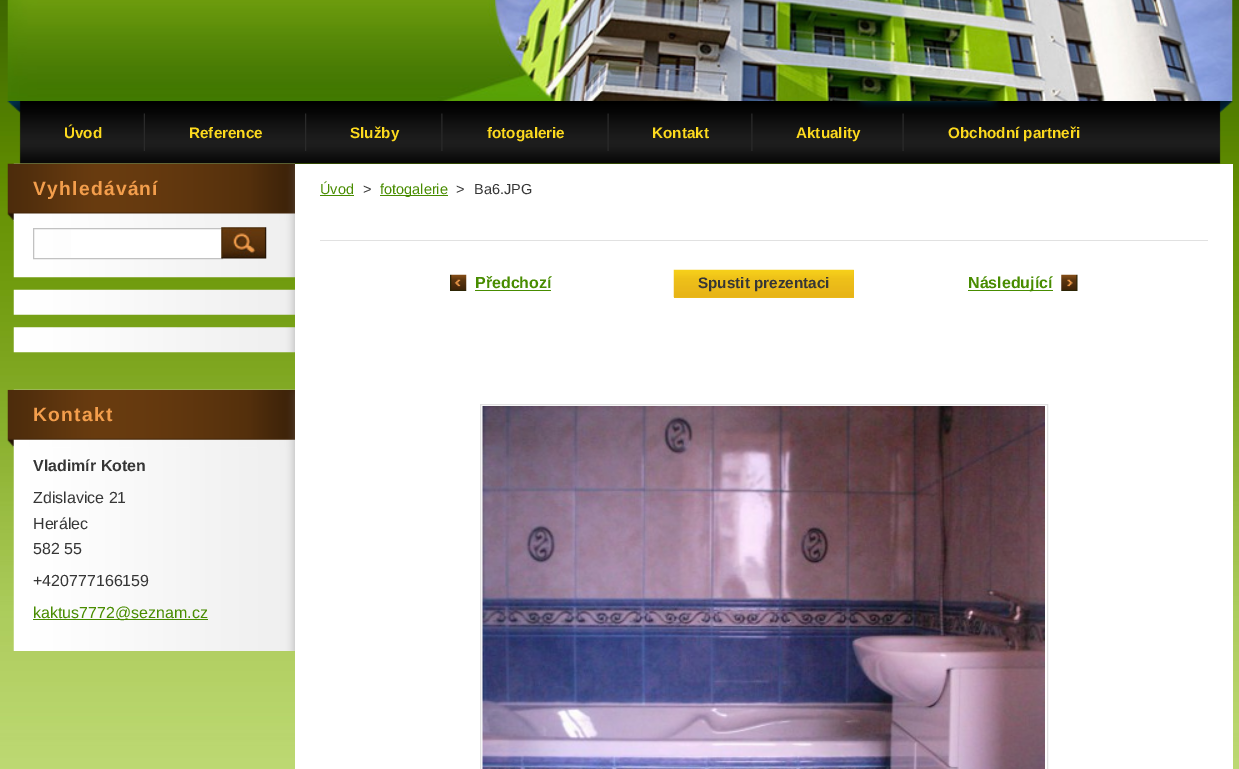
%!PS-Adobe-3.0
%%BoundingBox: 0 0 1239 769
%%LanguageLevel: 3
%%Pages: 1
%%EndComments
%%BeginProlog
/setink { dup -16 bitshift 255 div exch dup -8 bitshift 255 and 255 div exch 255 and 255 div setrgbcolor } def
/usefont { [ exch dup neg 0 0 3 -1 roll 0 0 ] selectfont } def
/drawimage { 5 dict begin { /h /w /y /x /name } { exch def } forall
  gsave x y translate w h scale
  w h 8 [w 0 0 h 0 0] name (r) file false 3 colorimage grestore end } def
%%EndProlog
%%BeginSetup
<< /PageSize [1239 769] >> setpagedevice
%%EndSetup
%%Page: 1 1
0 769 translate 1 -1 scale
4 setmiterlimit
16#FFFFFF setink
0 0 1239 769 rectfill
(img1.raw) 0 0 1239 769 drawimage
(img2.raw) 7 0 1226 101 drawimage
(img3.raw) 7 101 1226 63 drawimage
(img4.raw) 143 113 2 38 drawimage
/LiberationSans-Bold 15.25 usefont
16#FDDA1E setink
64 138 moveto (Úvod) show
(img5.raw) 305 113 2 38 drawimage
189 138 moveto (Reference) show
(img6.raw) 441 113 2 38 drawimage
350 138 moveto (Služby) show
(img7.raw) 607 113 2 38 drawimage
487 138 moveto (fotogalerie) show
(img6.raw) 751 113 2 38 drawimage
652 138 moveto (Kontakt) show
(img7.raw) 902 113 2 38 drawimage
796 138 moveto (Aktuality) show
948 138 moveto (Obchodní partneři) show
(img8.raw) 13 163 282 115 drawimage
(img9.raw) 7 163 288 58 drawimage
/LiberationSans-Bold 19.25 usefont
16#F39E4C setink
33 195 moveto 1.25 0 (Vyhledávání) ashow
16#FFFFFF setink
71 229 151 29 rectfill
16#C1C1C1 setink
33.5 228.5 189 30 rectstroke
(img10.raw) 221 227 46 32 drawimage
(img11.raw) 13 289 282 26 drawimage
(img12.raw) 13 327 282 26 drawimage
(img13.raw) 13 389 282 262 drawimage
(img14.raw) 7 389 288 59 drawimage
16#F39E4C setink
33 421 moveto 1.25 0 (Kontakt) ashow
/LiberationSans-Bold 16 usefont
16#363636 setink
33 471 moveto (Vladimír Koten) show
/LiberationSans-Regular 16 usefont
[
    [(Zdislavice 21) 33 503]
    [(Herálec) 33 529]
    [(582 55) 33 554]
    [(+420777166159) 33 586]
] { aload pop moveto show } forall
16#488C00 setink
33 619 175 1 rectfill
33 618 moveto (kaktus7772@seznam.cz) show
16#FFFFFF setink
295 164 938 605 rectfill
/LiberationSans-Regular 14.5 usefont
16#488C00 setink
320 194 moveto (Úvod) show
320 195 34 1 rectfill
16#363636 setink
363 194 moveto (>) show
16#488C00 setink
380 195 68 1 rectfill
380 194 moveto (fotogalerie) show
16#363636 setink
456 194 moveto (>) show
474 194 moveto (Ba6.JPG) show
16#E1E1E1 setink
320 240 888 1 rectfill
(img15.raw) 450 274 17 17 drawimage
/LiberationSans-Bold 16 usefont
16#488C00 setink
475 288 moveto (Předchozí) show
475 290 76 1 rectfill
16#EABA18 setink
674 270 180 28 rectfill
(img16.raw) 673 269 181 29 drawimage
/LiberationSans-Bold 15.25 usefont
16#363636 setink
698 288 moveto (Spustit prezentaci) show
(img17.raw) 1061 274 17 17 drawimage
16#488C00 setink
968 290 85 1 rectfill
/LiberationSans-Bold 16 usefont
968 288 moveto (Následující) show
16#E1E1E1 setink
480.5 404.5 567 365 rectstroke
(img18.raw) 482 406 563 363 drawimage
showpage
%%EOF
